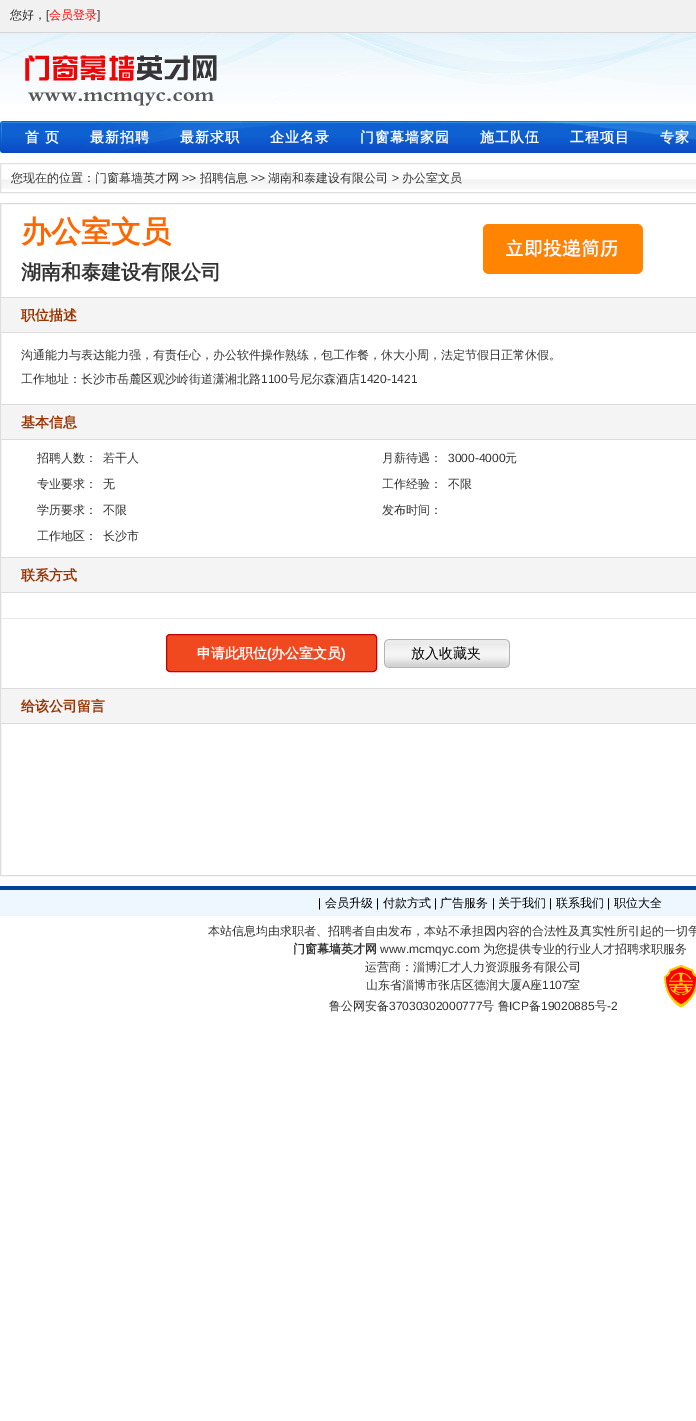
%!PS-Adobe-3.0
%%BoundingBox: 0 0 696 1421
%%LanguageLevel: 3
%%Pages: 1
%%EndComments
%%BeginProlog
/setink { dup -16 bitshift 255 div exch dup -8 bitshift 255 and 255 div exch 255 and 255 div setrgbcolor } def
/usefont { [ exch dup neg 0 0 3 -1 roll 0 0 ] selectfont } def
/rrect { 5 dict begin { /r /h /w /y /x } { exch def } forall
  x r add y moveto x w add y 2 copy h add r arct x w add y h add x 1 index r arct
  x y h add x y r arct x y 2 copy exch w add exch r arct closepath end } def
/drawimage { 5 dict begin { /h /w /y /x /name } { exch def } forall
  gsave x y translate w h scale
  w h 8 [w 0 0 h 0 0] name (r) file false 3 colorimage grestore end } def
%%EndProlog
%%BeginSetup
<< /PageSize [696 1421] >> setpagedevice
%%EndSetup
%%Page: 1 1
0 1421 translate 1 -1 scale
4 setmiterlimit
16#FFFFFF setink
0 0 696 1421 rectfill
(img1.raw) 0 33 696 71 drawimage
16#F1F1F1 setink
0 0 696 32 rectfill
16#D5D5D5 setink
0 32 696 1 rectfill
/WenQuanYiZenHei-Medium 12 usefont
16#333333 setink
10 19 moveto (您好，) show
/LiberationSans-Regular 12 usefont
46 19 moveto ([) show
/WenQuanYiZenHei-Medium 12 usefont
16#FF0000 setink
49 19 moveto (会员登录) show
/LiberationSans-Regular 12 usefont
16#333333 setink
97 19 moveto (]) show
(img2.raw) 25 55 192 51 drawimage
(img3.raw) 0 121 696 32 drawimage
/WenQuanYiZenHei-Bold 14 usefont
16#FFFFFF setink
25 142 moveto 1 0 (首 页) ashow
90 142 moveto 1 0 (最新招聘) ashow
180 142 moveto 1 0 (最新求职) ashow
270 142 moveto 1 0 (企业名录) ashow
360 142 moveto 1 0 (门窗幕墙家园) ashow
480 142 moveto 1 0 (施工队伍) ashow
570 142 moveto 1 0 (工程项目) ashow
660 142 moveto 1 0 (专家) ashow
(img4.raw) 1 179 695 10 drawimage
16#E1E1E1 setink
0.5 163.5 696 29 rectstroke
/WenQuanYiZenHei-Medium 12 usefont
16#333333 setink
11 182 moveto (您现在的位置：门窗幕墙英才网) show
/LiberationSans-Regular 12 usefont
182 182 moveto (>>) show
/WenQuanYiZenHei-Medium 12 usefont
200 182 moveto (招聘信息) show
/LiberationSans-Regular 12 usefont
251 182 moveto (>>) show
/WenQuanYiZenHei-Medium 12 usefont
268 182 moveto (湖南和泰建设有限公司) show
/LiberationSans-Regular 12 usefont
392 182 moveto (>) show
/WenQuanYiZenHei-Medium 12 usefont
402 182 moveto (办公室文员) show
16#DDDDDD setink
0.5 203.5 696 672 rectstroke
/WenQuanYiZenHei-Bold 30 usefont
16#FF6600 setink
21 242 moveto (办公室文员) show
(img5.raw) 483 224 160 50 drawimage
/WenQuanYiZenHei-Bold 20 usefont
16#333333 setink
21 279 moveto (湖南和泰建设有限公司) show
[
    [1 298 695 34 16#F4F4F4]
    [1 297 695 1 16#DDDDDD]
    [1 332 695 1 16#DDDDDD]
] { aload pop setink rectfill } forall
/WenQuanYiZenHei-Bold 14 usefont
16#993300 setink
21 320 moveto (职位描述) show
/WenQuanYiZenHei-Medium 12 usefont
16#333333 setink
21 359 moveto (沟通能力与表达能力强，有责任心，办公软件操作熟练，包工作餐，休大小周，法定节假日正常休假。) show
21 383 moveto (工作地址：长沙市岳麓区观沙岭街道潇湘北路) show
/LiberationSans-Regular 12 usefont
261 383 moveto (1100) show
/WenQuanYiZenHei-Medium 12 usefont
288 383 moveto (号尼尔森酒店) show
/LiberationSans-Regular 12 usefont
360 383 moveto (1420-1421) show
[
    [1 405 695 34 16#F4F4F4]
    [1 404 695 1 16#DDDDDD]
    [1 439 695 1 16#DDDDDD]
] { aload pop setink rectfill } forall
/WenQuanYiZenHei-Bold 14 usefont
16#993300 setink
21 427 moveto (基本信息) show
/WenQuanYiZenHei-Medium 12 usefont
16#333333 setink
[
    [(招聘人数：) 37 462]
    [(若干人) 103 462]
    [(月薪待遇：) 382 462]
] { aload pop moveto show } forall
/LiberationSans-Regular 12 usefont
448 462 moveto (3000-4000) show
/WenQuanYiZenHei-Medium 12 usefont
[
    [(元) 505 462]
    [(专业要求：) 37 488]
    [(无) 103 488]
    [(工作经验：) 382 488]
    [(不限) 448 488]
    [(学历要求：) 37 514]
    [(不限) 103 514]
    [(发布时间：) 382 514]
    [(工作地区：) 37 540]
    [(长沙市) 103 540]
] { aload pop moveto show } forall
[
    [1 558 695 34 16#F4F4F4]
    [1 557 695 1 16#DDDDDD]
    [1 592 695 1 16#DDDDDD]
] { aload pop setink rectfill } forall
/WenQuanYiZenHei-Bold 14 usefont
16#993300 setink
21 580 moveto (联系方式) show
16#EAEAEA setink
1 618 695 1 rectfill
16#F1491F setink
166.5 634.5 210 37 3.5 rrect gsave fill grestore
16#C40000 setink
stroke
16#FFFFFF setink
197 658 moveto (申请此职位) show
/LiberationSans-Bold 14 usefont
267 658 moveto (\() show
/WenQuanYiZenHei-Bold 14 usefont
271 658 moveto (办公室文员) show
/LiberationSans-Bold 14 usefont
341 658 moveto (\)) show
(img6.raw) 384 639 126 29 drawimage
/WenQuanYiZenHei-Medium 14 usefont
16#000000 setink
411 658 moveto (放入收藏夹) show
[
    [1 689 695 34 16#F4F4F4]
    [1 688 695 1 16#DDDDDD]
    [1 723 695 1 16#DDDDDD]
] { aload pop setink rectfill } forall
/WenQuanYiZenHei-Bold 14 usefont
16#993300 setink
21 711 moveto (给该公司留言) show
16#004499 setink
0 886 696 4 rectfill
16#EEF7FF setink
0 890 696 26 rectfill
/LiberationSans-Regular 12 usefont
16#000000 setink
318 907 moveto (|) show
/WenQuanYiZenHei-Medium 12 usefont
325 907 moveto (会员升级) show
/LiberationSans-Regular 12 usefont
376 907 moveto (|) show
/WenQuanYiZenHei-Medium 12 usefont
383 907 moveto (付款方式) show
/LiberationSans-Regular 12 usefont
434 907 moveto (|) show
/WenQuanYiZenHei-Medium 12 usefont
440 907 moveto (广告服务) show
/LiberationSans-Regular 12 usefont
492 907 moveto (|) show
/WenQuanYiZenHei-Medium 12 usefont
498 907 moveto (关于我们) show
/LiberationSans-Regular 12 usefont
549 907 moveto (|) show
/WenQuanYiZenHei-Medium 12 usefont
556 907 moveto (联系我们) show
/LiberationSans-Regular 12 usefont
607 907 moveto (|) show
/WenQuanYiZenHei-Medium 12 usefont
614 907 moveto (职位大全) show
16#333333 setink
208 935 moveto (本站信息均由求职者、招聘者自由发布，本站不承担因内容的合法性及真实性所引起的一切争) show
/WenQuanYiZenHei-Bold 12 usefont
293 953 moveto (门窗幕墙英才网) show
/LiberationSans-Regular 12 usefont
380 953 moveto (www.mcmqyc.com) show
/WenQuanYiZenHei-Medium 12 usefont
[
    [(为您提供专业的行业人才招聘求职服务) 483 953]
    [(运营商：淄博汇才人力资源服务有限公司) 365 971]
    [(山东省淄博市张店区德润大厦) 366 989]
] { aload pop moveto show } forall
/LiberationSans-Regular 12 usefont
522 989 moveto (A) show
/WenQuanYiZenHei-Medium 12 usefont
530 989 moveto (座) show
/LiberationSans-Regular 12 usefont
542 989 moveto (1107) show
/WenQuanYiZenHei-Medium 12 usefont
568 989 moveto (室) show
(img7.raw) 664 965 32 43 drawimage
329 1010 moveto (鲁公网安备) show
/LiberationSans-Regular 12 usefont
389 1010 moveto (37030302000777) show
/WenQuanYiZenHei-Medium 12 usefont
482 1010 moveto (号 鲁) show
/LiberationSans-Regular 12 usefont
509 1010 moveto (ICP) show
/WenQuanYiZenHei-Medium 12 usefont
529 1010 moveto (备) show
/LiberationSans-Regular 12 usefont
541 1010 moveto (19020885) show
/WenQuanYiZenHei-Medium 12 usefont
595 1010 moveto (号) show
/LiberationSans-Regular 12 usefont
607 1010 moveto (-2) show
showpage
%%EOF
